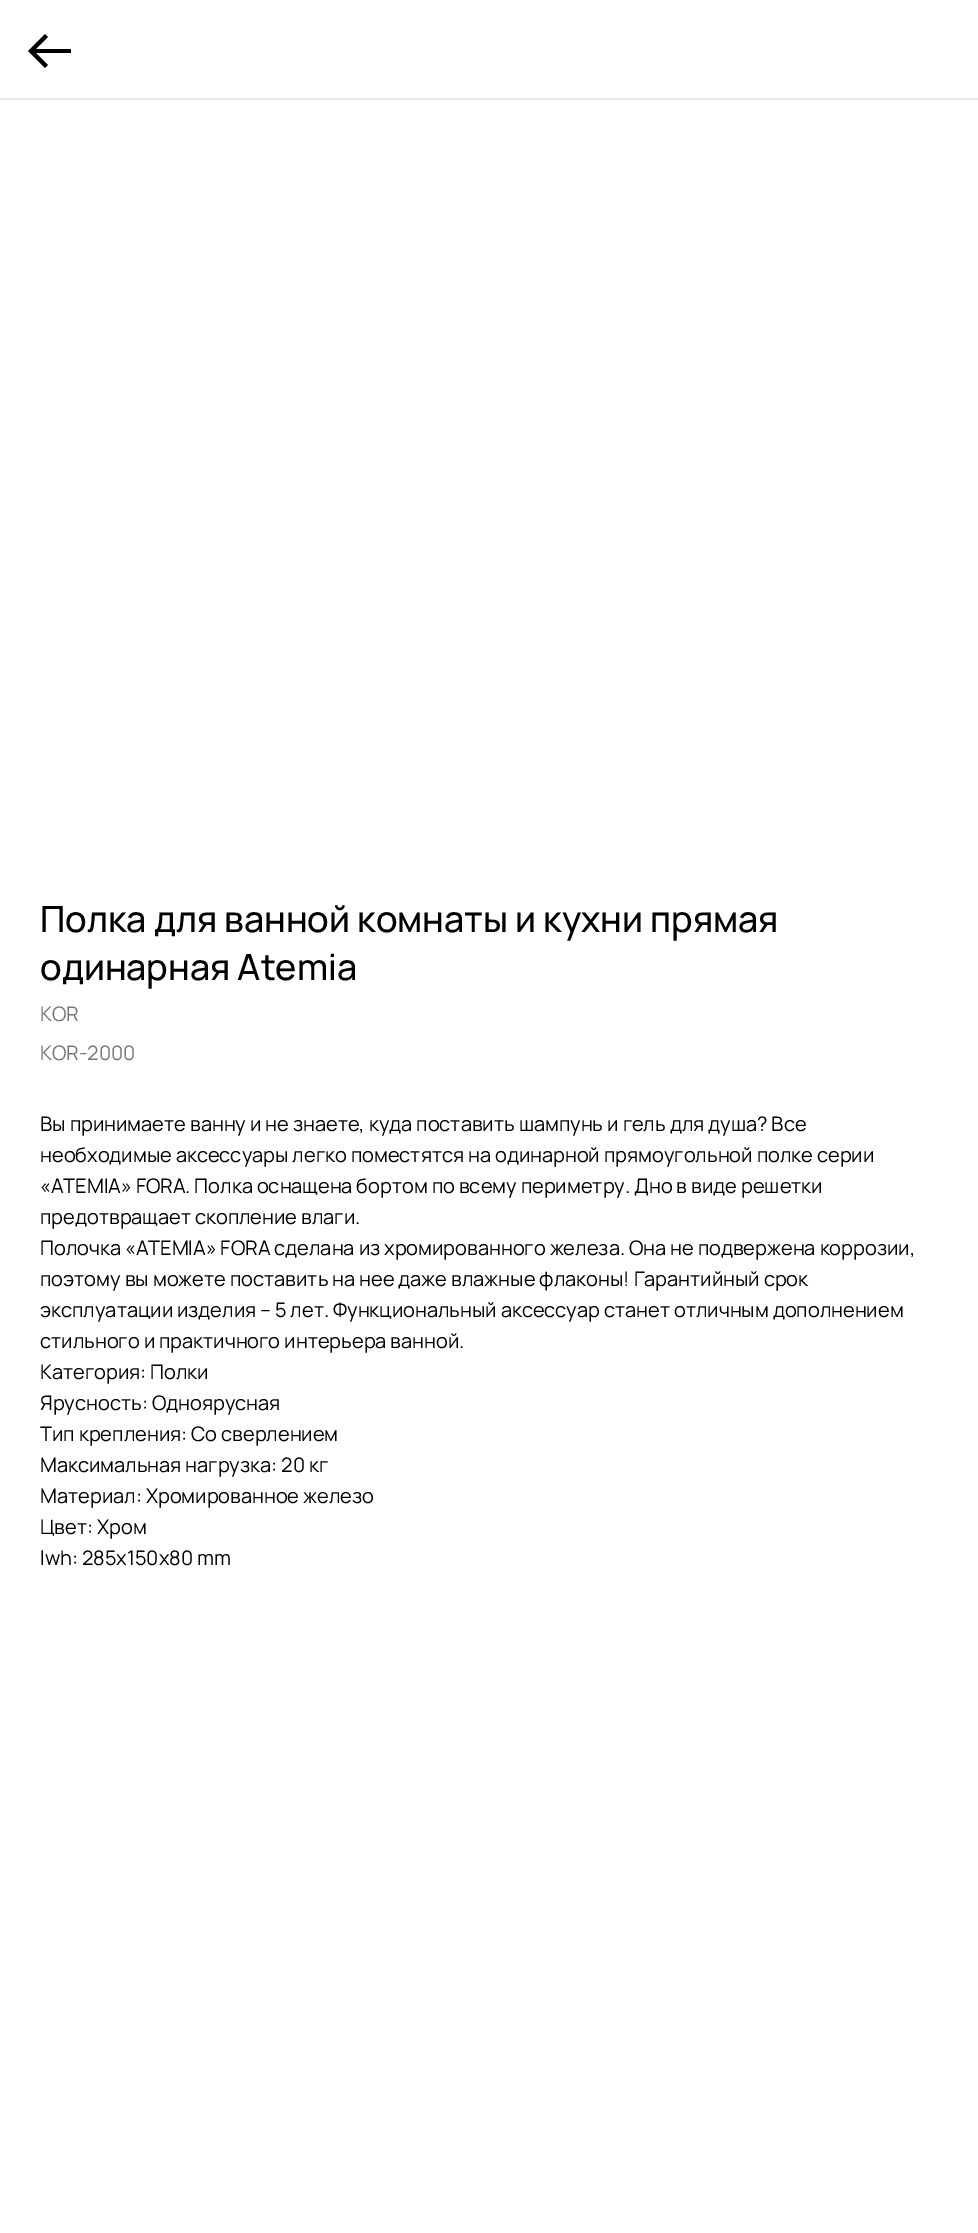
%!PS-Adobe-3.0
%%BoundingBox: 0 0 978 2233
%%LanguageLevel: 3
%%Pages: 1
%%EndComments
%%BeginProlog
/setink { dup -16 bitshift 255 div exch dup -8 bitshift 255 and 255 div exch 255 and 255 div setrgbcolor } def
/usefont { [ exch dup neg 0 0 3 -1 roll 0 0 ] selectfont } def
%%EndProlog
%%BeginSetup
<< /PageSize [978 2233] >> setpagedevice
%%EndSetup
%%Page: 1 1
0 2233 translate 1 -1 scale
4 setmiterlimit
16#FFFFFF setink
0 0 978 2233 rectfill
16#E6E6E6 setink
0 98 978 2 rectfill
16#000000 setink
45 34 moveto 48 37 lineto 36 49 lineto 71 49 lineto 71 53 lineto 36 53 lineto 48 65 lineto 45 68 lineto 28 51 lineto closepath fill
/Manrope-Medium 36 usefont
40 932 moveto (Полка для ванной комнаты и кухни прямая) show
40 980 moveto (одинарная Atemia) show
/Manrope-Regular 20 usefont
16#777777 setink
40 1021 moveto (KOR) show
40 1060 moveto (KOR-2000) show
16#000000 setink
[
    [(Вы принимаете ванну и не знаете, куда поставить шампунь и гель для душа? Все) 40 1131]
    [(необходимые аксессуары легко поместятся на одинарной прямоугольной полке серии) 40 1162]
    [(«ATEMIA» FORA. Полка оснащена бортом по всему периметру. Дно в виде решетки) 40 1193]
    [(предотвращает скопление влаги.) 40 1224]
    [(Полочка «ATEMIA» FORA сделана из хромированного железа. Она не подвержена коррозии,) 40 1255]
    [(поэтому вы можете поставить на нее даже влажные флаконы! Гарантийный срок) 40 1286]
    [(эксплуатации изделия – 5 лет. Функциональный аксессуар станет отличным дополнением) 40 1317]
    [(стильного и практичного интерьера ванной.) 40 1348]
    [(Категория: Полки) 40 1379]
    [(Ярусность: Одноярусная) 40 1410]
    [(Тип крепления: Со сверлением) 40 1441]
    [(Максимальная нагрузка: 20 кг) 40 1472]
    [(Материал: Хромированное железо) 40 1503]
    [(Цвет: Хром) 40 1534]
    [(lwh: 285x150x80 mm) 40 1565]
] { aload pop moveto show } forall
showpage
%%EOF
